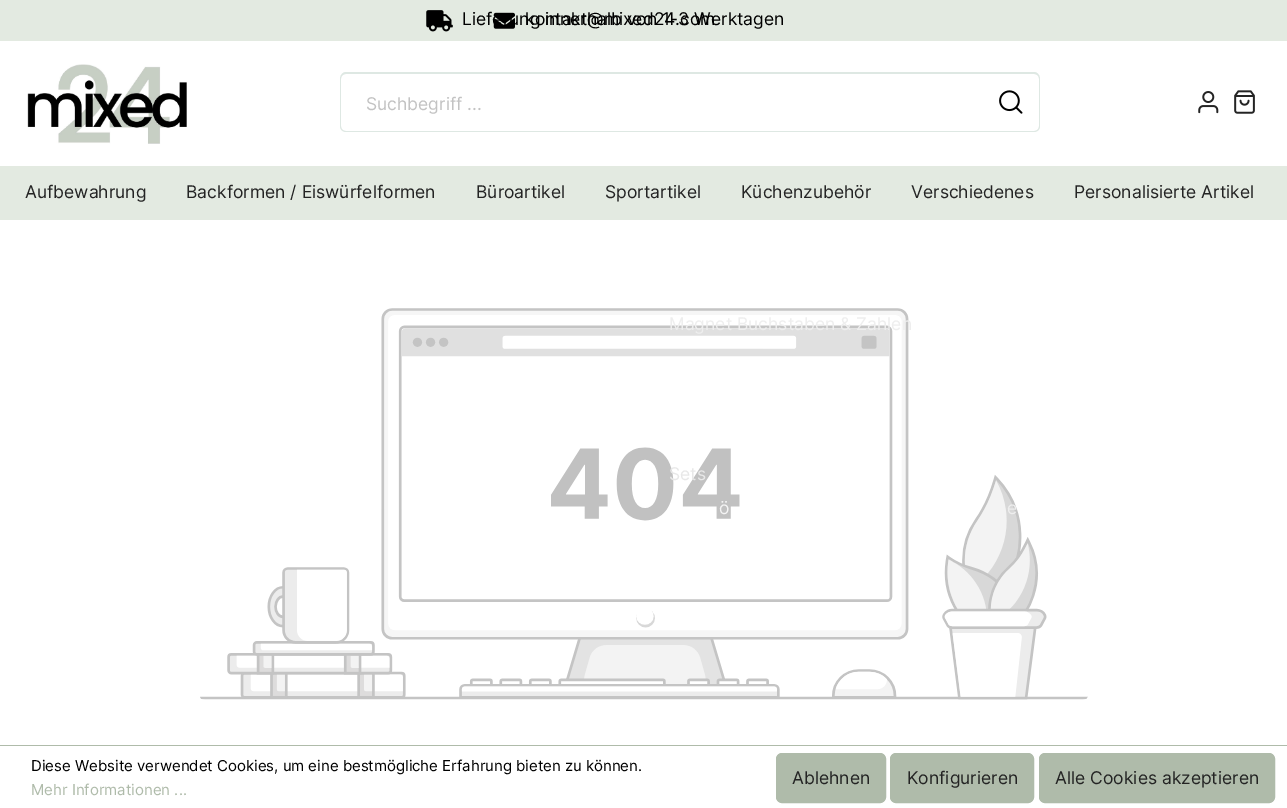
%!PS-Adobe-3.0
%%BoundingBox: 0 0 1287 808
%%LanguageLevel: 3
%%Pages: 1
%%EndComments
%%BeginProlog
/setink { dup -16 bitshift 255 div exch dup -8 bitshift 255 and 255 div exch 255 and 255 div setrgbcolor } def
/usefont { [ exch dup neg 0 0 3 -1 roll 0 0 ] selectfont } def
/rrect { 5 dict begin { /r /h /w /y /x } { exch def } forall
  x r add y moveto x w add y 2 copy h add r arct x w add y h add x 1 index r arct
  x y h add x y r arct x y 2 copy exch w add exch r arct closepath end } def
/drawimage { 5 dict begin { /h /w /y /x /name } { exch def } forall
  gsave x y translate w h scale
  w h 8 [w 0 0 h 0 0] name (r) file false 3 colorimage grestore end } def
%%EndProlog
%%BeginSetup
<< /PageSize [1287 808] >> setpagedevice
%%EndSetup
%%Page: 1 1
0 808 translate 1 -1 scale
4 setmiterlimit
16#FFFFFF setink
0 0 1287 808 rectfill
16#E3EAE1 setink
0 0 1287 41 rectfill
(img1.raw) 426 10 27 22 drawimage
(img2.raw) 493 12 22 17 drawimage
/Inter-Regular 17.5 usefont
16#000000 setink
525 25 moveto (kontakt@mixed24.com) show
462 25 moveto (Lieferung innerhalb von 1-3 Werktagen) show
(img3.raw) 27 64 160 80 drawimage
16#DEE8E3 setink
346 72 moveto 985 72 lineto 985 132 lineto 346 132 lineto 343 132 340 130 340 126 curveto 340 79 lineto 340 75 343 72 346 72 curveto closepath 346 74 moveto 985 74 lineto 985 131 lineto 346 131 lineto 343 131 341 129 341 126 curveto 341 79 lineto 341 76 343 74 346 74 curveto closepath eofill
16#C3C3C3 setink
366 110 moveto (Suchbegriff ...) show
16#FFFFFF setink
984 73 moveto 1034 73 lineto 1037.5 73 1040 75.5 1040 79 curveto 1040 127 lineto 1040 130.5 1037.5 133 1034 133 curveto 984 133 lineto closepath fill
16#DEE8E3 setink
984 72 moveto 1034 72 lineto 1037 72 1040 75 1040 79 curveto 1040 126 lineto 1040 130 1037 132 1034 132 curveto 984 132 lineto closepath 984 74 moveto 1034 74 lineto 1037 74 1039 76 1039 79 curveto 1039 126 lineto 1039 129 1037 131 1034 131 curveto 984 131 lineto closepath eofill
(img4.raw) 999 90 24 24 drawimage
(img5.raw) 1198 91 21 23 drawimage
(img6.raw) 1234 90 21 24 drawimage
16#E3EAE1 setink
0 166 1287 54 rectfill
16#242424 setink
[
    [(Aufbewahrung) 25 198]
    [(Backformen / Eiswürfelformen) 186 198]
    [(Büroartikel) 476 198]
    [(Sportartikel) 605 198]
    [(Küchenzubehör) 741 198]
    [(Verschiedenes) 911 198]
    [(Personalisierte Artikel) 1074 198]
] { aload pop moveto show } forall
(img7.raw) 200 308 888 392 drawimage
16#EEEEEE setink
669 330 moveto (Magnet Buchstaben & Zahlen) show
16#E8E8E8 setink
669 480 moveto (Sets) show
16#F4F4F4 setink
719 514 moveto (ö) show
16#EEEEEE setink
1007 514 moveto (e) show
16#AFBBAA setink
0 745 1287 1 rectfill
/Inter-Regular 15 usefont
16#000000 setink
31 771 moveto (Diese Website verwendet Cookies, um eine bestmögliche Erfahrung bieten zu können.) show
16#AFBBAA setink
31 795 moveto (Mehr Informationen ...) show
776.5 753.5 109 49 5.5 rrect gsave fill grestore
stroke
/Inter-Regular 17.5 usefont
16#242424 setink
792 784 moveto (Ablehnen) show
16#AFBBAA setink
890.5 753.5 143 49 5.5 rrect gsave fill grestore
stroke
16#242424 setink
907 784 moveto (Konfigurieren) show
16#AFBBAA setink
1039.5 753.5 235 49 5.5 rrect gsave fill grestore
stroke
16#242424 setink
1055 784 moveto (Alle Cookies akzeptieren) show
showpage
%%EOF
